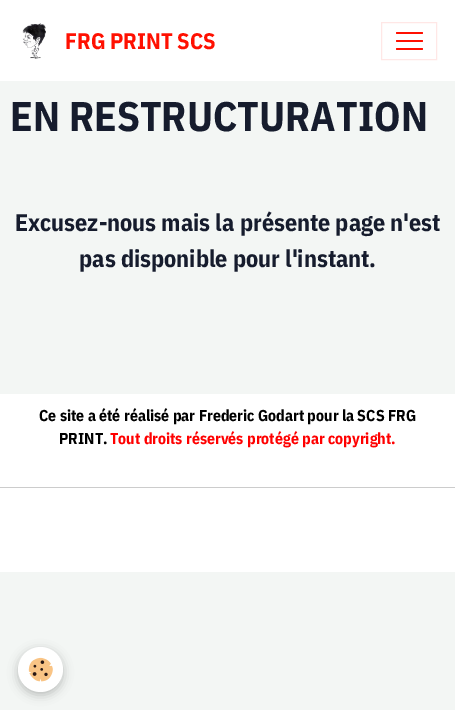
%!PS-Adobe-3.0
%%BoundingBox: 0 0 455 710
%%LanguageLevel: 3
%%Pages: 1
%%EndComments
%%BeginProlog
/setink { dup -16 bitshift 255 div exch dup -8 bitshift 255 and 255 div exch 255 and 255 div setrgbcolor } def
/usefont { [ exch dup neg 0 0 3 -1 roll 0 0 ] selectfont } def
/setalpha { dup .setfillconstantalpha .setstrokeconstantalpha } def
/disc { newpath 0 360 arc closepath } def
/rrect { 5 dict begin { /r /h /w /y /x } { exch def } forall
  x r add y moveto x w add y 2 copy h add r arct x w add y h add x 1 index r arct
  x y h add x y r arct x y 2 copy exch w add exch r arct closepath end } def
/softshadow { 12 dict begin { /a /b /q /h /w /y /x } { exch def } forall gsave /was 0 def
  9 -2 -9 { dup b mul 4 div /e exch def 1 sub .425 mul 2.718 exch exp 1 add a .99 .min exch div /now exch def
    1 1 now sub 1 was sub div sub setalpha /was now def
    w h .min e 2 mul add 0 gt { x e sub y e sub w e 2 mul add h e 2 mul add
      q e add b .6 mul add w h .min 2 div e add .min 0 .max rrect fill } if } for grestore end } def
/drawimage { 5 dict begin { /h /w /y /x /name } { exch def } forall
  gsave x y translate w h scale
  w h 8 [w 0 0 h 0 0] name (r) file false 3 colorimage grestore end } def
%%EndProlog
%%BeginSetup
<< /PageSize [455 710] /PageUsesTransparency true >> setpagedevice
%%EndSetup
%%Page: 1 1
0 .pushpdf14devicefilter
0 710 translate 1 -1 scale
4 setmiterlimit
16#F3F6F4 setink
0 0 455 710 rectfill
16#FFFFFF setink
0 0 455 81 rectfill
(img1.raw) 22 23 24 36 drawimage
/IBMPlexSansCondensed-Bold 22.5 usefont
16#FF1001 setink
65 49 moveto (FRG PRINT SCS) show
16#FFE7E6 setink
381.5 22.5 55 37 rectstroke
16#FF1001 setink
396 32 27 2 1 rrect fill
396 40 27 2 1 rrect fill
396 48 27 2 1 rrect fill
/IBMPlexSansCondensed-Bold 41.4 usefont
16#161C2D setink
10 131 moveto (EN RESTRUCTURATION) show
/IBMPlexSansCondensed-Bold 24 usefont
15 231 moveto (Excusez-nous mais la présente page n'est) show
79 267 moveto (pas disponible pour l'instant.) show
16#FFFFFF setink
0 394 455 178 rectfill
/IBMPlexSansCondensed-Bold 15.75 usefont
16#000000 setink
39 421 moveto (Ce site a été réalisé par Frederic Godart pour la SCS FRG) show
59 444 moveto (PRINT.) show
16#FF0000 setink
110 444 moveto (Tout droits réservés protégé par copyright.) show
16#CCCCCC setink
0 487 455 1 rectfill
16#000000 setink
18 650 45 45 22.5 5 0.24 softshadow
16#FFFFFF setink
40.5 669.5 22.5 disc fill
(img2.raw) 28 657 25 25 drawimage
.poppdf14devicefilter showpage
%%EOF
